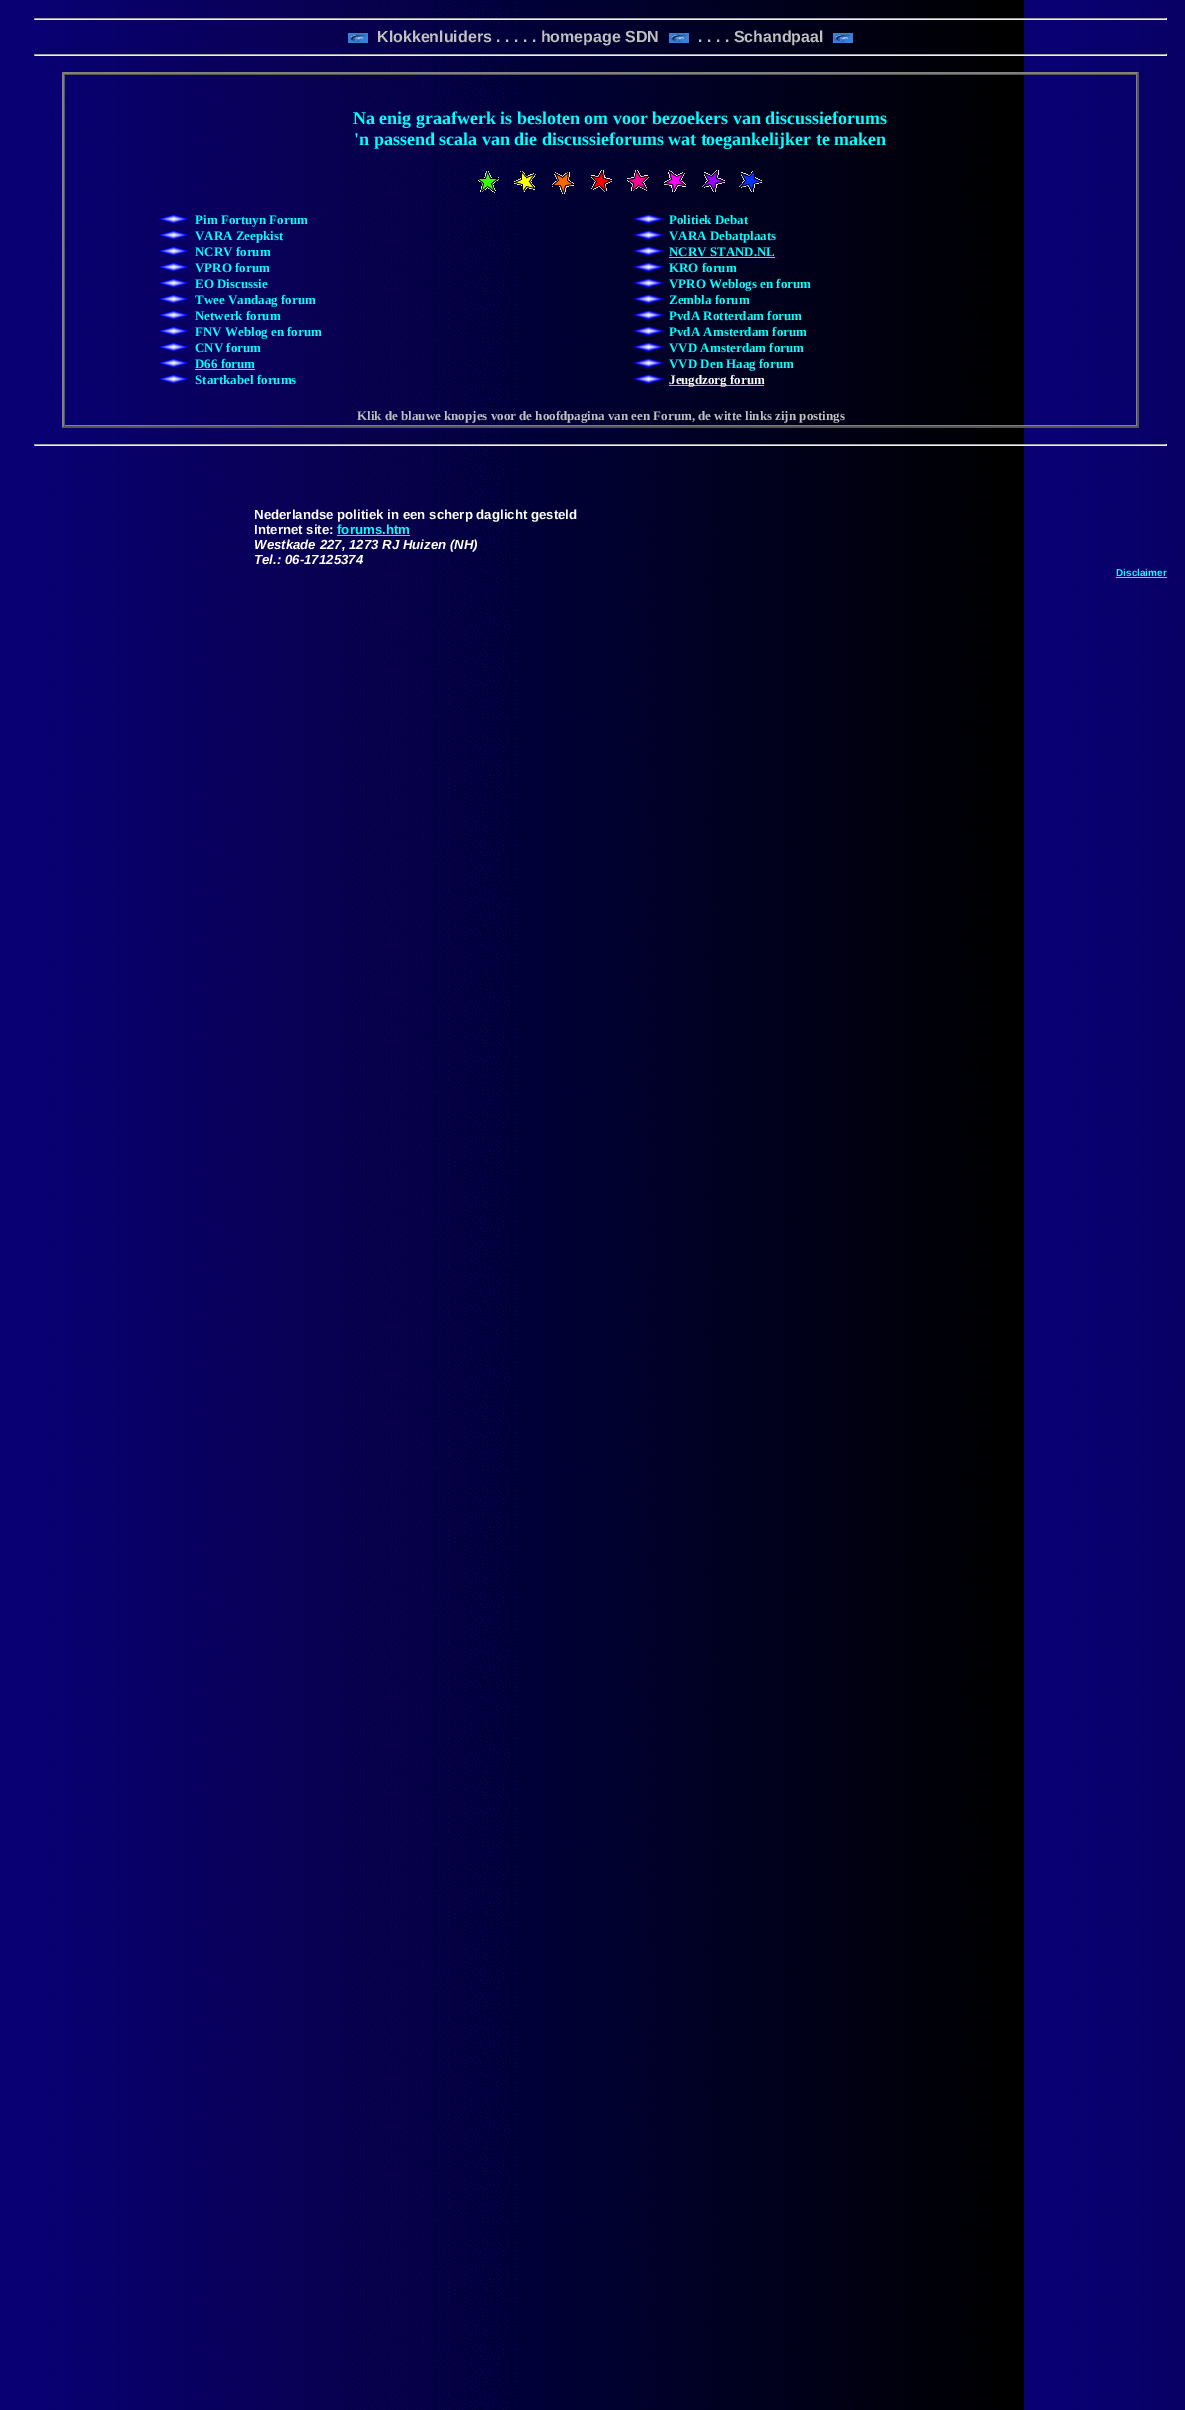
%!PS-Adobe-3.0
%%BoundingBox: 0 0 1185 2410
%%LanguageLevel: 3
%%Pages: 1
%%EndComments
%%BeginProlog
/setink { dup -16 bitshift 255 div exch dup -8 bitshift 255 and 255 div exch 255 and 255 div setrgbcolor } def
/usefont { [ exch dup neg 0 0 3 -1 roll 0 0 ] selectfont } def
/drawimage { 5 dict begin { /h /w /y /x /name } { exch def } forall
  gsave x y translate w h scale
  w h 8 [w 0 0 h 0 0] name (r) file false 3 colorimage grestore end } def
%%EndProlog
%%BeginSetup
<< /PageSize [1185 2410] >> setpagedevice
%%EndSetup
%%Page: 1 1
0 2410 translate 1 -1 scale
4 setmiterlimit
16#FFFFFF setink
0 0 1185 2410 rectfill
(img1.raw) 0 0 1185 2410 drawimage
[
    [34 18 1133 1 16#9F9F9F]
    [1166 18 1 2 16#EEEEEE]
    [34 19 1133 1 16#EEEEEE]
    [34 18 1 2 16#9F9F9F]
] { aload pop setink rectfill } forall
(img2.raw) 348 33 20 10 drawimage
/LiberationSans-Bold 16 usefont
16#C0C0C0 setink
377 42 moveto (Klokkenluiders . . . . . homepage SDN) show
(img2.raw) 669 33 20 10 drawimage
698 42 moveto (. . . . Schandpaal) show
(img3.raw) 833 33 20 10 drawimage
[
    [34 54 1133 1 16#9F9F9F]
    [1166 54 1 2 16#EEEEEE]
    [34 55 1133 1 16#EEEEEE]
    [34 54 1 2 16#9F9F9F]
] { aload pop setink rectfill } forall
16#808080 setink
62 72 moveto 1139 72 lineto 1137 74 lineto 64 74 lineto closepath fill
16#555555 setink
1139 72 moveto 1139 428 lineto 1137 426 lineto 1137 74 lineto closepath fill
1139 428 moveto 62 428 lineto 64 426 lineto 1137 426 lineto closepath fill
16#808080 setink
62 428 moveto 62 72 lineto 64 74 lineto 64 426 lineto closepath fill
[
    [64 74 1073 1 16#555555]
    [1136 74 1 352 16#808080]
    [64 425 1073 1 16#808080]
    [64 74 1 352 16#555555]
] { aload pop setink rectfill } forall
/LiberationSerif-Bold 18 usefont
16#00FFFF setink
353 124 moveto (Na enig graafwerk is besloten om voor bezoekers van discussieforums) show
354 145 moveto ('n passend scala van die discussieforums wat toegankelijker te maken) show
(img4.raw) 477 170 285 24 drawimage
(img5.raw) 157 214 33 10 drawimage
/LiberationSerif-Bold 13 usefont
195 224 moveto (Pim Fortuyn Forum) show
(img6.raw) 157 230 33 10 drawimage
195 240 moveto (VARA Zeepkist) show
(img7.raw) 157 246 33 10 drawimage
195 256 moveto (NCRV forum) show
(img8.raw) 157 262 33 10 drawimage
195 272 moveto (VPRO forum) show
(img9.raw) 157 278 33 10 drawimage
195 288 moveto (EO Discussie) show
(img10.raw) 157 294 33 10 drawimage
195 304 moveto (Twee Vandaag forum) show
(img11.raw) 157 310 33 10 drawimage
195 320 moveto (Netwerk forum) show
(img12.raw) 157 326 33 10 drawimage
195 336 moveto (FNV Weblog en forum) show
(img13.raw) 157 342 33 10 drawimage
195 352 moveto (CNV forum) show
(img14.raw) 157 358 33 10 drawimage
195 368 moveto (D66 forum) show
195 369 60 1 rectfill
(img15.raw) 157 374 33 10 drawimage
195 384 moveto (Startkabel forums) show
(img16.raw) 632 214 33 10 drawimage
669 224 moveto (Politiek Debat) show
(img17.raw) 632 230 33 10 drawimage
669 240 moveto (VARA Debatplaats) show
(img18.raw) 632 246 33 10 drawimage
669 256 moveto (NCRV STAND.NL) show
669 257 106 1 rectfill
(img19.raw) 632 262 33 10 drawimage
669 272 moveto (KRO forum) show
(img20.raw) 632 278 33 10 drawimage
669 288 moveto (VPRO Weblogs en forum) show
(img21.raw) 632 294 33 10 drawimage
669 304 moveto (Zembla forum) show
(img22.raw) 632 310 33 10 drawimage
669 320 moveto (PvdA Rotterdam forum) show
(img23.raw) 632 326 33 10 drawimage
669 336 moveto (PvdA Amsterdam forum) show
(img24.raw) 632 342 33 10 drawimage
669 352 moveto (VVD Amsterdam forum) show
(img25.raw) 632 358 33 10 drawimage
669 368 moveto (VVD Den Haag forum) show
(img26.raw) 632 374 33 10 drawimage
669 385 95 1 rectfill
16#FFFFFF setink
669 384 moveto (Jeugdzorg forum) show
16#C0C0C0 setink
357 420 moveto (Klik de blauwe knopjes voor de hoofdpagina van een Forum, de witte links zijn postings) show
[
    [34 444 1133 1 16#9F9F9F]
    [1166 444 1 2 16#EEEEEE]
    [34 445 1133 1 16#EEEEEE]
    [34 444 1 2 16#9F9F9F]
] { aload pop setink rectfill } forall
/LiberationSans-Bold 13.25 usefont
16#FFFFFF setink
254 519 moveto (Nederlandse politiek in een scherp daglicht gesteld) show
254 534 moveto (Internet site:) show
16#00FFFF setink
337 534 moveto (forums.htm) show
337 535 73 1 rectfill
/LiberationSans-BoldItalic 13.25 usefont
16#FFFFFF setink
254 549 moveto (Westkade 227, 1273 RJ Huizen \(NH\)) show
254 564 moveto (Tel.: 06-17125374) show
/LiberationSans-Bold 10 usefont
16#00FFFF setink
1116 576 moveto (Disclaimer) show
1116 577 51 1 rectfill
showpage
%%EOF
